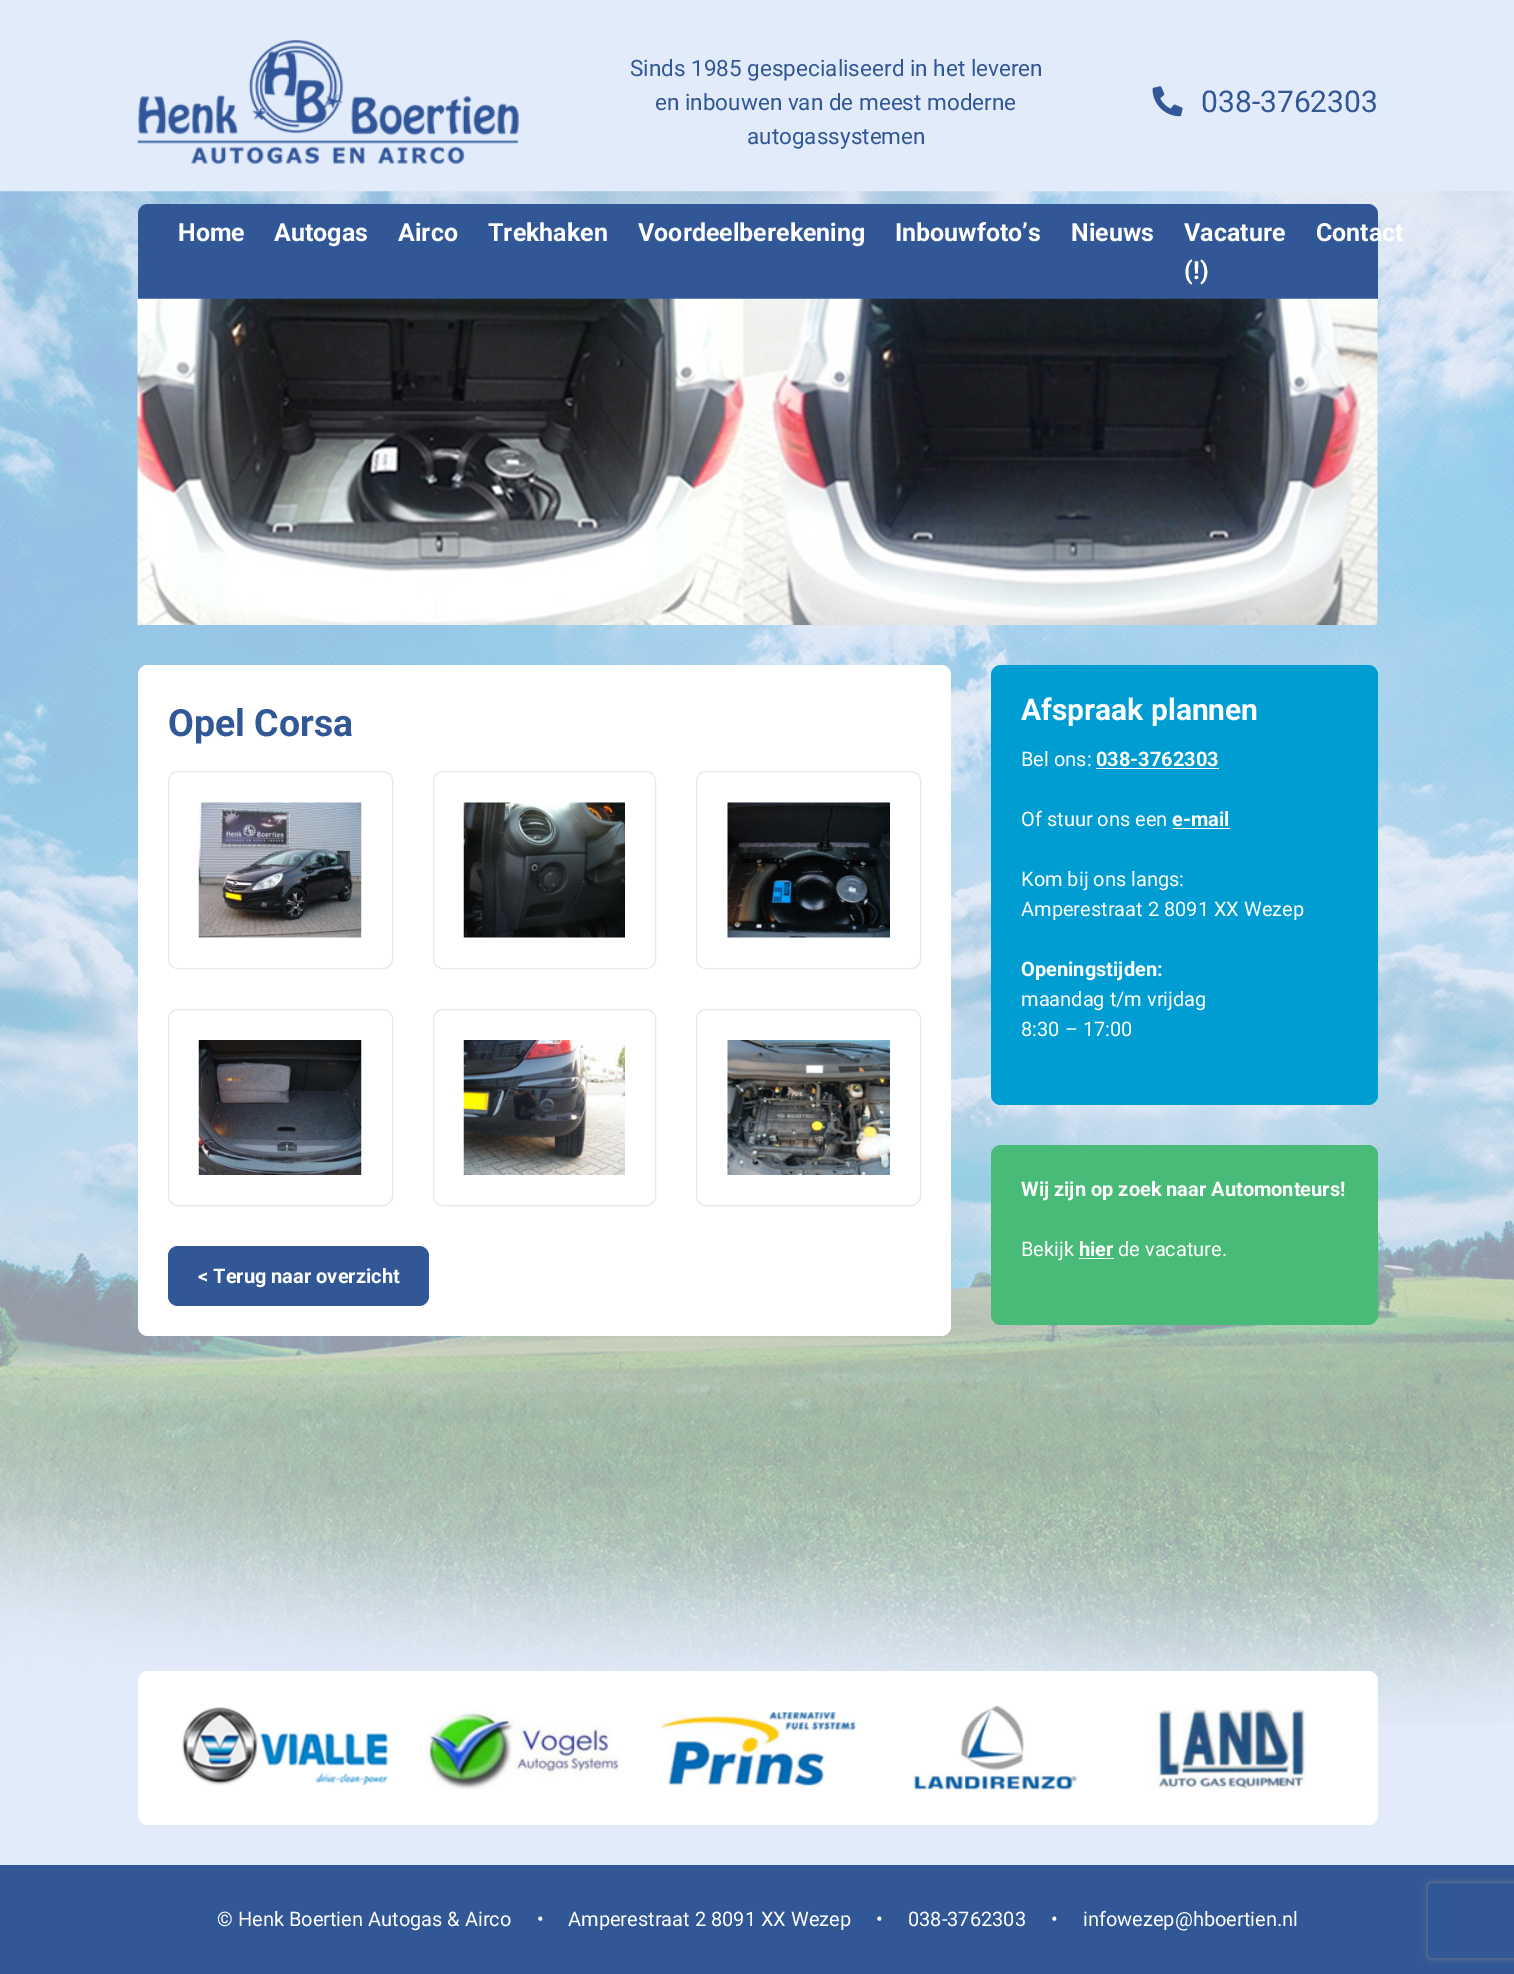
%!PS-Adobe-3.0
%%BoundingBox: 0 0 1514 1974
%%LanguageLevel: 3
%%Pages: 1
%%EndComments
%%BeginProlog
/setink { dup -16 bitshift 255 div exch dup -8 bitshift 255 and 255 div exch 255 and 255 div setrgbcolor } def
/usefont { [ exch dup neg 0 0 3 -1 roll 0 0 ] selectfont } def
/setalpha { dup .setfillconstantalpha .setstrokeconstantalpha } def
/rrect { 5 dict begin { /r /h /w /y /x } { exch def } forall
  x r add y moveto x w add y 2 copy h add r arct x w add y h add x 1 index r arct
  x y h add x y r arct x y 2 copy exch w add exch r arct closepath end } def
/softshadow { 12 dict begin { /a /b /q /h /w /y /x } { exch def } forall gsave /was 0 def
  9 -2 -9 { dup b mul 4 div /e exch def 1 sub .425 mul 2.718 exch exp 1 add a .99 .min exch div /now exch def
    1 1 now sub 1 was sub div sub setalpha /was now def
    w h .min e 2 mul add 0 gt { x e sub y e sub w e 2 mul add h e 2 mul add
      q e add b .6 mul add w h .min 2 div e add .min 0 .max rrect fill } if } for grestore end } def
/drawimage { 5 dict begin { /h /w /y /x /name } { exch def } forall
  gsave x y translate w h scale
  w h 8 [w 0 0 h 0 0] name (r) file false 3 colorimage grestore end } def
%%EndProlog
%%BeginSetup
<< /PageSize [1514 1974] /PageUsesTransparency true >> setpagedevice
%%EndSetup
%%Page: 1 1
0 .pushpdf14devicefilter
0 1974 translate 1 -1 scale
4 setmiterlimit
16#E2EBF9 setink
0 0 1514 1974 rectfill
(img1.raw) 0 191 1514 1532 drawimage
(img2.raw) 137 40 382 124 drawimage
/Roboto-Regular 22.5 usefont
16#315797 setink
[
    [(Sinds 1985 gespecialiseerd in het leveren) 630 76]
    [(en inbouwen van de meest moderne) 655 110]
    [(autogassystemen) 747 144]
] { aload pop moveto show } forall
(img3.raw) 1152 86 31 31 drawimage
/Roboto-Regular 30 usefont
1201 112 moveto (038-3762303) show
148 204 moveto 1368 204 lineto 1373.5 204 1378 208.5 1378 214 curveto 1378 299 lineto 138 299 lineto 138 214 lineto 138 208.5 142.5 204 148 204 curveto closepath fill
/Roboto-Bold 25 usefont
16#FFFFFF setink
[
    [(Home) 178 241]
    [(Autogas) 274 241]
    [(Airco) 398 241]
    [(Trekhaken) 488 241]
    [(Voordeelberekening) 638 241]
    [(Inbouwfoto’s) 895 241]
    [(Nieuws) 1071 241]
    [(Vacature) 1184 241]
    [(\(!\)) 1184 279]
    [(Contact) 1316 241]
] { aload pop moveto show } forall
(img4.raw) 137 298 1241 327 drawimage
138 665 813 671 10 rrect fill
/Roboto-Bold 37.5 usefont
16#315797 setink
168 736 moveto (Opel Corsa) show
16#E2E8F0 setink
168.5 771.5 224 197 9.5 rrect stroke
(img5.raw) 198 802 164 136 drawimage
433.5 771.5 222 197 9.5 rrect stroke
(img6.raw) 463 802 162 136 drawimage
696.5 771.5 224 197 9.5 rrect stroke
(img7.raw) 727 802 163 136 drawimage
168.5 1009.5 224 196 9.5 rrect stroke
(img8.raw) 198 1040 164 135 drawimage
433.5 1009.5 222 196 9.5 rrect stroke
(img9.raw) 463 1040 162 135 drawimage
696.5 1009.5 224 196 9.5 rrect stroke
(img10.raw) 727 1040 163 135 drawimage
16#315797 setink
168 1246 261 60 10 rrect fill
/Roboto-Bold 20 usefont
16#FFFFFF setink
198 1283 moveto (< Terug naar overzicht) show
16#009DD3 setink
991 665 387 440 10 rrect fill
/Roboto-Bold 30 usefont
16#FFFFFF setink
1021 720 moveto (Afspraak plannen) show
/Roboto-Regular 20 usefont
1021 766 moveto (Bel ons:) show
/Roboto-Bold 20 usefont
1096 766 moveto (038-3762303) show
1096 768 123 1 rectfill
/Roboto-Regular 20 usefont
1021 826 moveto (Of stuur ons een) show
/Roboto-Bold 20 usefont
1172 826 moveto (e-mail) show
1173 828 57 1 rectfill
/Roboto-Regular 20 usefont
1021 886 moveto (Kom bij ons langs:) show
1021 916 moveto (Amperestraat 2 8091 XX Wezep) show
/Roboto-Bold 20 usefont
1021 976 moveto (Openingstijden:) show
/Roboto-Regular 20 usefont
1021 1006 moveto (maandag t/m vrijdag) show
1021 1036 moveto (8:30 – 17:00) show
16#48BB78 setink
991 1145 387 180 10 rrect fill
/Roboto-Bold 20 usefont
16#FFFFFF setink
1021 1196 moveto (Wij zijn op zoek naar Automonteurs!) show
/Roboto-Regular 20 usefont
1021 1256 moveto (Bekijk) show
/Roboto-Bold 20 usefont
1079 1256 moveto (hier) show
1079 1258 35 1 rectfill
/Roboto-Regular 20 usefont
1118 1256 moveto (de vacature.) show
138 1671 1240 154 10 rrect fill
(img11.raw) 182 1707 206 79 drawimage
(img12.raw) 424 1708 200 82 drawimage
(img13.raw) 659 1712 197 74 drawimage
(img14.raw) 912 1705 166 85 drawimage
(img15.raw) 1150 1708 157 81 drawimage
16#315797 setink
0 1865 1514 109 rectfill
16#FFFFFF setink
[
    [(© Henk Boertien Autogas & Airco) 217 1926]
    [(•) 537 1926]
    [(Amperestraat 2 8091 XX Wezep) 568 1926]
    [(•) 876 1926]
    [(038-3762303) 908 1926]
    [(•) 1051 1926]
    [(infowezep@hboertien.nl) 1083 1926]
] { aload pop moveto show } forall
gsave
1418 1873 moveto 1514 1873 lineto 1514 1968 lineto 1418 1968 lineto closepath 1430.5 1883 moveto 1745.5 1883 lineto 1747 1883 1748 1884 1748 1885.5 curveto 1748 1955.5 lineto 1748 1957 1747 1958 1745.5 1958 curveto 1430.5 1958 lineto 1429 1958 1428 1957 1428 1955.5 curveto 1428 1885.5 lineto 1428 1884 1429 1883 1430.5 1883 curveto closepath eoclip newpath
16#808080 setink
1428 1883 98 75 2.5 3 1 softshadow
grestore
.poppdf14devicefilter showpage
%%EOF
